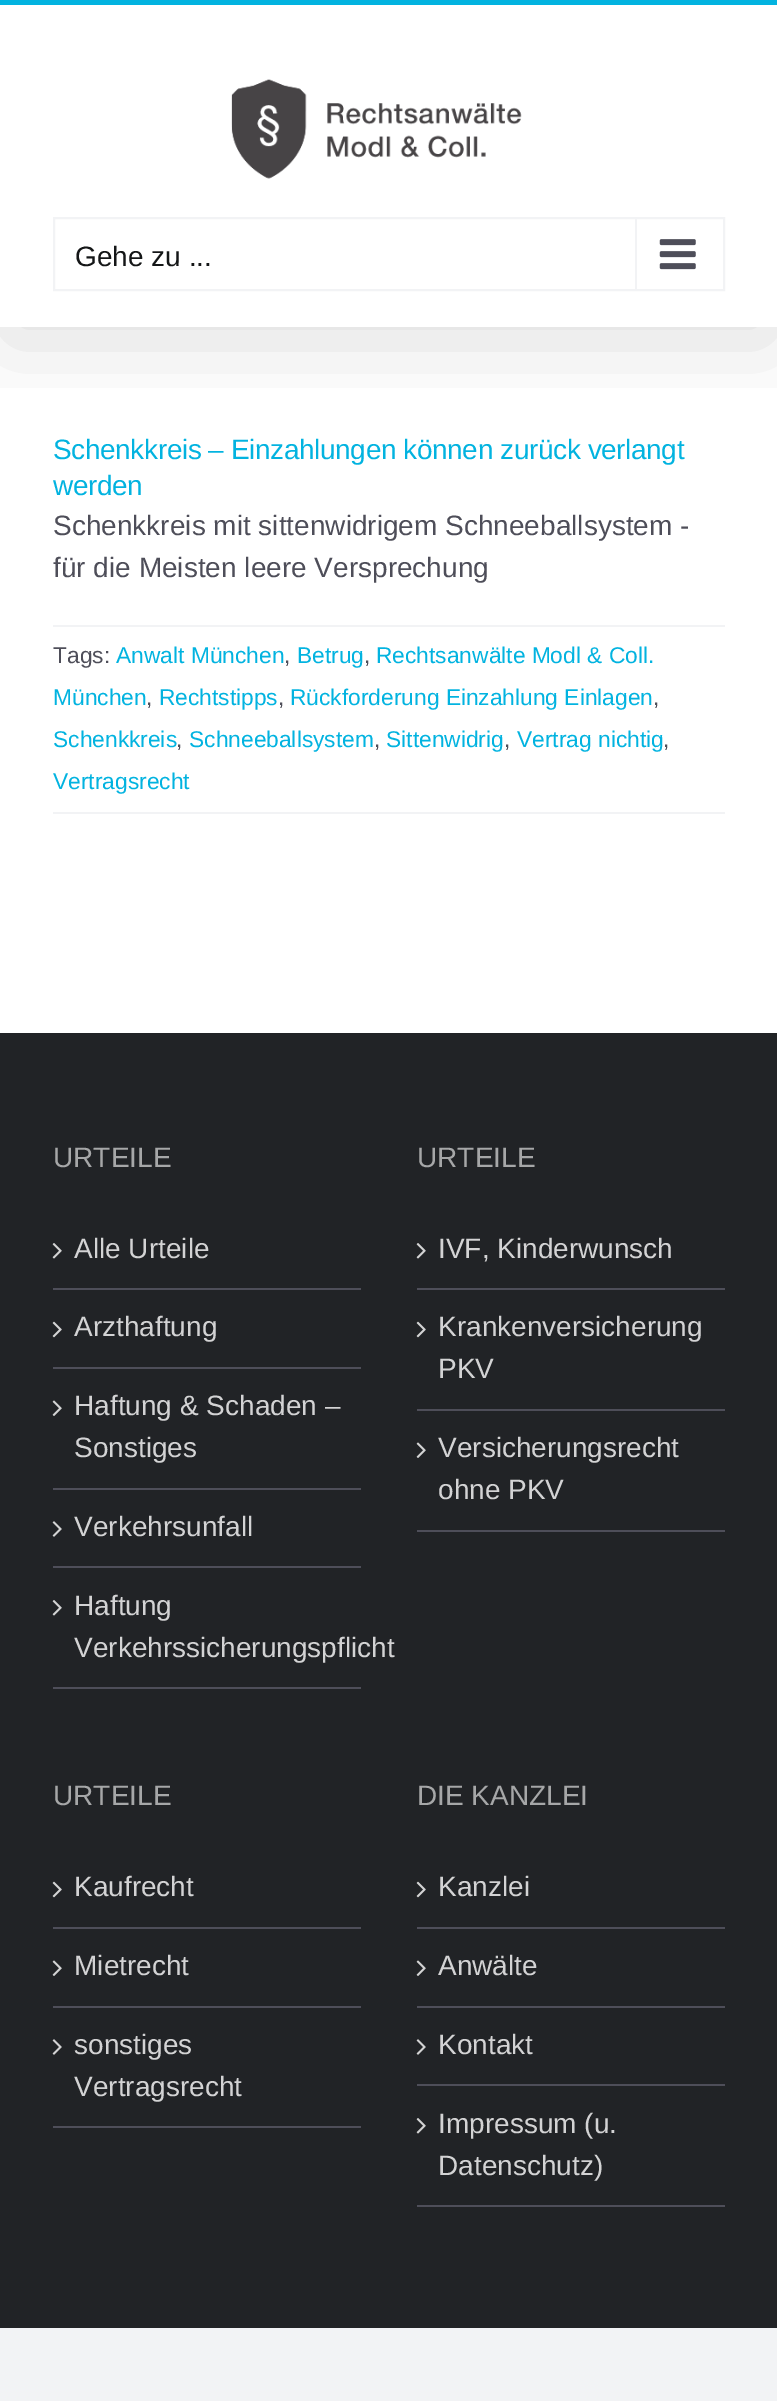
%!PS-Adobe-3.0
%%BoundingBox: 0 0 777 2401
%%LanguageLevel: 3
%%Pages: 1
%%EndComments
%%BeginProlog
/setink { dup -16 bitshift 255 div exch dup -8 bitshift 255 and 255 div exch 255 and 255 div setrgbcolor } def
/usefont { [ exch dup neg 0 0 3 -1 roll 0 0 ] selectfont } def
/setalpha { dup .setfillconstantalpha .setstrokeconstantalpha } def
/rrect { 5 dict begin { /r /h /w /y /x } { exch def } forall
  x r add y moveto x w add y 2 copy h add r arct x w add y h add x 1 index r arct
  x y h add x y r arct x y 2 copy exch w add exch r arct closepath end } def
/softshadow { 12 dict begin { /a /b /q /h /w /y /x } { exch def } forall gsave /was 0 def
  9 -2 -9 { dup b mul 4 div /e exch def 1 sub .425 mul 2.718 exch exp 1 add a .99 .min exch div /now exch def
    1 1 now sub 1 was sub div sub setalpha /was now def
    w h .min e 2 mul add 0 gt { x e sub y e sub w e 2 mul add h e 2 mul add
      q e add b .6 mul add w h .min 2 div e add .min 0 .max rrect fill } if } for grestore end } def
/drawimage { 5 dict begin { /h /w /y /x /name } { exch def } forall
  gsave x y translate w h scale
  w h 8 [w 0 0 h 0 0] name (r) file false 3 colorimage grestore end } def
%%EndProlog
%%BeginSetup
<< /PageSize [777 2401] /PageUsesTransparency true >> setpagedevice
%%EndSetup
%%Page: 1 1
0 .pushpdf14devicefilter
0 2401 translate 1 -1 scale
4 setmiterlimit
16#F2F3F5 setink
0 0 777 2401 rectfill
16#FFFFFF setink
0 5 777 1028 rectfill
gsave
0 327 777 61 rectclip
16#000000 setink
4 21 770 320 0 44 0.14 softshadow
grestore
16#02B3E0 setink
0 0 777 5 rectfill
(img1.raw) 231 79 291 100 drawimage
16#F2F3F5 setink
2 setlinewidth
54 218 670 72 rectstroke
/LiberationSans-Regular 28 usefont
16#141617 setink
75 266 moveto (Gehe zu ...) show
16#F2F3F5 setink
635 219 2 70 rectfill
(img2.raw) 659 239 37 31 drawimage
16#02B3E0 setink
53 459 moveto -0.4 0 (Schenkkreis – Einzahlungen können zurück verlangt) ashow
53 495 moveto -0.4 0 (werden) ashow
16#4E4E59 setink
53 535 moveto (Schenkkreis mit sittenwidrigem Schneeballsystem -) show
53 577 moveto (für die Meisten leere Versprechung) show
16#F2F3F5 setink
53 625 672 2 rectfill
53 812 672 2 rectfill
/LiberationSans-Regular 22.75 usefont
16#4E4E59 setink
53 663 moveto (Tags:) show
16#02B3E0 setink
116 663 moveto (Anwalt München) show
16#4E4E59 setink
284 663 moveto (,) show
16#02B3E0 setink
297 663 moveto (Betrug) show
16#4E4E59 setink
364 663 moveto (,) show
16#02B3E0 setink
376 663 moveto (Rechtsanwälte Modl & Coll.) show
53 705 moveto (München) show
16#4E4E59 setink
146 705 moveto (,) show
16#02B3E0 setink
159 705 moveto (Rechtstipps) show
16#4E4E59 setink
278 705 moveto (,) show
16#02B3E0 setink
290 705 moveto (Rückforderung Einzahlung Einlagen) show
16#4E4E59 setink
653 705 moveto (,) show
16#02B3E0 setink
53 747 moveto (Schenkkreis) show
16#4E4E59 setink
176 747 moveto (,) show
16#02B3E0 setink
189 747 moveto (Schneeballsystem) show
16#4E4E59 setink
374 747 moveto (,) show
16#02B3E0 setink
386 747 moveto (Sittenwidrig) show
16#4E4E59 setink
504 747 moveto (,) show
16#02B3E0 setink
517 747 moveto (Vertrag nichtig) show
16#4E4E59 setink
663 747 moveto (,) show
16#02B3E0 setink
53 789 moveto (Vertragsrecht) show
16#212326 setink
0 1033 777 1295 rectfill
/LiberationSans-Regular 28 usefont
16#A6A7A8 setink
53 1167 moveto (URTEILE) show
16#4E4E59 setink
53 1288 308 2 rectfill
(img3.raw) 52 1243 10 16 drawimage
16#D3D3D4 setink
74 1258 moveto (Alle Urteile) show
16#4E4E59 setink
53 1367 308 2 rectfill
(img4.raw) 52 1321 10 17 drawimage
16#D3D3D4 setink
74 1336 moveto (Arzthaftung) show
16#4E4E59 setink
53 1488 308 2 rectfill
(img5.raw) 52 1400 10 16 drawimage
16#D3D3D4 setink
74 1415 moveto (Haftung & Schaden –) show
74 1457 moveto (Sonstiges) show
16#4E4E59 setink
53 1566 308 2 rectfill
(img6.raw) 52 1521 10 16 drawimage
16#D3D3D4 setink
74 1536 moveto (Verkehrsunfall) show
16#4E4E59 setink
53 1687 308 2 rectfill
(img3.raw) 52 1600 10 16 drawimage
16#D3D3D4 setink
74 1615 moveto (Haftung) show
74 1657 moveto (Verkehrssicherungspflicht) show
16#A6A7A8 setink
417 1167 moveto (URTEILE) show
16#4E4E59 setink
417 1288 308 2 rectfill
(img3.raw) 416 1243 10 16 drawimage
16#D3D3D4 setink
438 1258 moveto (IVF, Kinderwunsch) show
16#4E4E59 setink
417 1409 308 2 rectfill
(img4.raw) 416 1321 10 17 drawimage
16#D3D3D4 setink
438 1336 moveto (Krankenversicherung) show
438 1378 moveto (PKV) show
16#4E4E59 setink
417 1530 308 2 rectfill
(img5.raw) 416 1442 10 16 drawimage
16#D3D3D4 setink
438 1457 moveto (Versicherungsrecht) show
438 1499 moveto (ohne PKV) show
16#A6A7A8 setink
53 1805 moveto (URTEILE) show
16#4E4E59 setink
53 1927 308 2 rectfill
(img4.raw) 52 1881 10 17 drawimage
16#D3D3D4 setink
74 1896 moveto (Kaufrecht) show
16#4E4E59 setink
53 2006 308 2 rectfill
(img5.raw) 52 1960 10 16 drawimage
16#D3D3D4 setink
74 1975 moveto (Mietrecht) show
16#4E4E59 setink
53 2126 308 2 rectfill
(img6.raw) 52 2039 10 16 drawimage
16#D3D3D4 setink
74 2054 moveto (sonstiges) show
74 2096 moveto (Vertragsrecht) show
16#A6A7A8 setink
417 1805 moveto (DIE KANZLEI) show
16#4E4E59 setink
417 1927 308 2 rectfill
(img4.raw) 416 1881 10 17 drawimage
16#D3D3D4 setink
438 1896 moveto (Kanzlei) show
16#4E4E59 setink
417 2006 308 2 rectfill
(img5.raw) 416 1960 10 16 drawimage
16#D3D3D4 setink
438 1975 moveto (Anwälte) show
16#4E4E59 setink
417 2084 308 2 rectfill
(img6.raw) 416 2039 10 16 drawimage
16#D3D3D4 setink
438 2054 moveto (Kontakt) show
16#4E4E59 setink
417 2205 308 2 rectfill
(img3.raw) 416 2118 10 16 drawimage
16#D3D3D4 setink
438 2133 moveto (Impressum \(u.) show
438 2175 moveto (Datenschutz\)) show
.poppdf14devicefilter showpage
%%EOF
